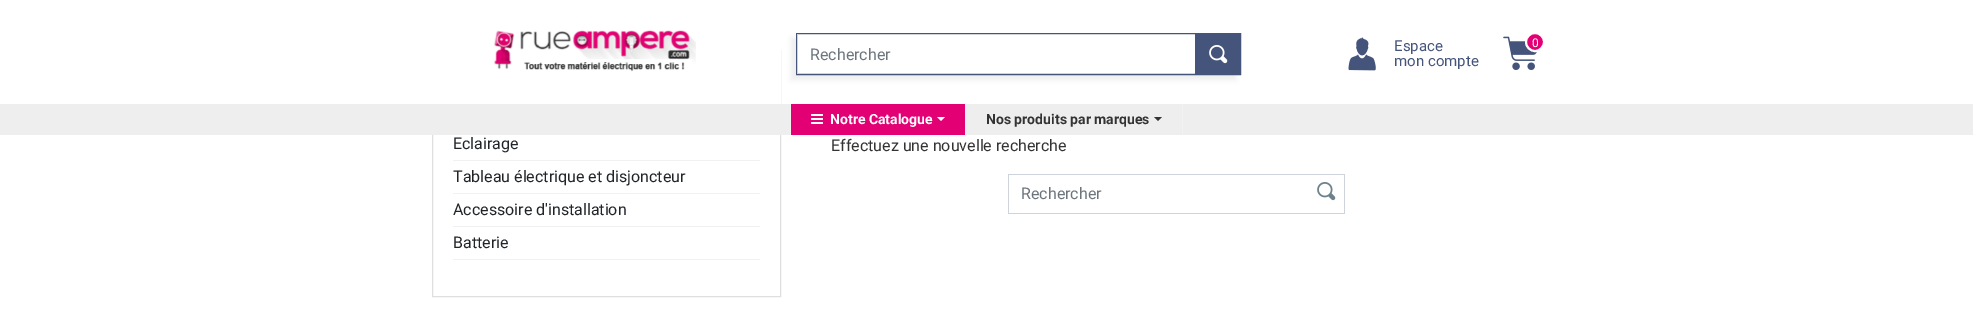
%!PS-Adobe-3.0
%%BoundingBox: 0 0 1973 309
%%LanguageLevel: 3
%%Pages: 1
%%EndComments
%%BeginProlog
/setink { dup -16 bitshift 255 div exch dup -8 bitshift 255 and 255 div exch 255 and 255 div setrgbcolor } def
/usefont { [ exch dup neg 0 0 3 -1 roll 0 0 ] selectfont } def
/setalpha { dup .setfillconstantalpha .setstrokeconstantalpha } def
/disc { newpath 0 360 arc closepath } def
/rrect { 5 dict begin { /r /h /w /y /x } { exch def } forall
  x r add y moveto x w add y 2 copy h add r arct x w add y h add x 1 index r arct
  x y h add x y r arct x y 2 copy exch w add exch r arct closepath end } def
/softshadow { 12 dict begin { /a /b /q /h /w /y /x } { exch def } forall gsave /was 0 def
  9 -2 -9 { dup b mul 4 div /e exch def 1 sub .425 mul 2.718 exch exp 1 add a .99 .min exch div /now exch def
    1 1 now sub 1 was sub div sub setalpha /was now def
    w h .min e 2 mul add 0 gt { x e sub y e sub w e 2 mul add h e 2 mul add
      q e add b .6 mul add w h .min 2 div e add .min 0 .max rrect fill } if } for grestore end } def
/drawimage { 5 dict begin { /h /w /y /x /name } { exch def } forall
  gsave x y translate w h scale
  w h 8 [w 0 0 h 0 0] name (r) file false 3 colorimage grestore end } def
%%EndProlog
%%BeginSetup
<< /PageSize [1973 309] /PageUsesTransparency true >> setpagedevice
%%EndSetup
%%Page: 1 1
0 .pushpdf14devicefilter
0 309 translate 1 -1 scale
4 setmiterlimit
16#FFFFFF setink
0 0 1973 309 rectfill
16#DFDFDF setink
432.5 50.5 348 246 rectstroke
16#FFFFFF setink
432 50 349 54 rectfill
(img1.raw) 494 30 202 42 drawimage
gsave
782 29 moveto 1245 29 lineto 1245 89 lineto 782 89 lineto closepath 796 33 moveto 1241 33 lineto 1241 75 lineto 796 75 lineto closepath eoclip newpath
16#EEEEEE setink
791 38 445 42 0 2.5 1 softshadow
grestore
16#45547B setink
796.5 33.5 444 41 rectstroke
[
    [797 34 398 1 16#CED4DA]
    [797 73 398 1 16#CED4DA]
    [797 34 1 40 16#CED4DA]
] { aload pop setink rectfill } forall
/Roboto-Regular 16 usefont
16#6C757D setink
810 60 moveto (Rechercher) show
16#45547B setink
1195 34 45 40 rectfill
(img2.raw) 1209 45 19 19 drawimage
(img3.raw) 1348 37 28 34 drawimage
/Roboto-Regular 15 usefont
1394 51 moveto (Espace) show
1394 66 moveto (mon compte) show
(img5.raw) 1509 41 28 14 drawimage
(img4.raw) 1503 36 32 25 drawimage
16#E20074 setink
1535 42 9 disc gsave fill grestore
16#FFFFFF setink
2 setlinewidth
stroke
/Roboto-Regular 12 usefont
1532 47 moveto (0) show
(img6.raw) 1512 62 8 8 drawimage
(img7.raw) 1527 62 8 8 drawimage
[
    [0 104 1973 31 16#EEEEEE]
    [965 104 1 31 16#F2F2F2]
    [790 104 1 31 16#F2F2F2]
    [791 104 174 31 16#E20074]
] { aload pop setink rectfill } forall
(img8.raw) 811 114 12 10 drawimage
/Roboto-Bold 14 usefont
16#FFFFFF setink
830 124 moveto (Notre Catalogue) show
937 117 moveto 945 117 lineto 941 121 lineto closepath fill
16#F2F2F2 setink
1182 104 1 31 rectfill
16#333333 setink
986 124 moveto (Nos produits par marques) show
1154 117 moveto 1162 117 lineto 1158 121 lineto closepath fill
16#F1F1F1 setink
453 160 307 1 rectfill
/Roboto-Regular 16 usefont
16#212529 setink
453 149 moveto (Eclairage) show
16#F1F1F1 setink
453 193 307 1 rectfill
16#212529 setink
453 182 moveto (Tableau électrique et disjoncteur) show
16#F1F1F1 setink
453 226 307 1 rectfill
16#212529 setink
453 215 moveto (Accessoire d'installation) show
16#F1F1F1 setink
453 259 307 1 rectfill
16#212529 setink
453 248 moveto (Batterie) show
16#333333 setink
831 151 moveto (Effectuez une nouvelle recherche) show
[
    [1008 174 337 1 16#CED4DA]
    [1344 174 1 40 16#CED4DA]
    [1008 213 337 1 16#CED4DA]
] { aload pop setink rectfill } forall
(img9.raw) 1317 182 19 19 drawimage
1008 174 1 40 rectfill
16#6C757D setink
1021 199 moveto (Rechercher) show
.poppdf14devicefilter showpage
%%EOF
